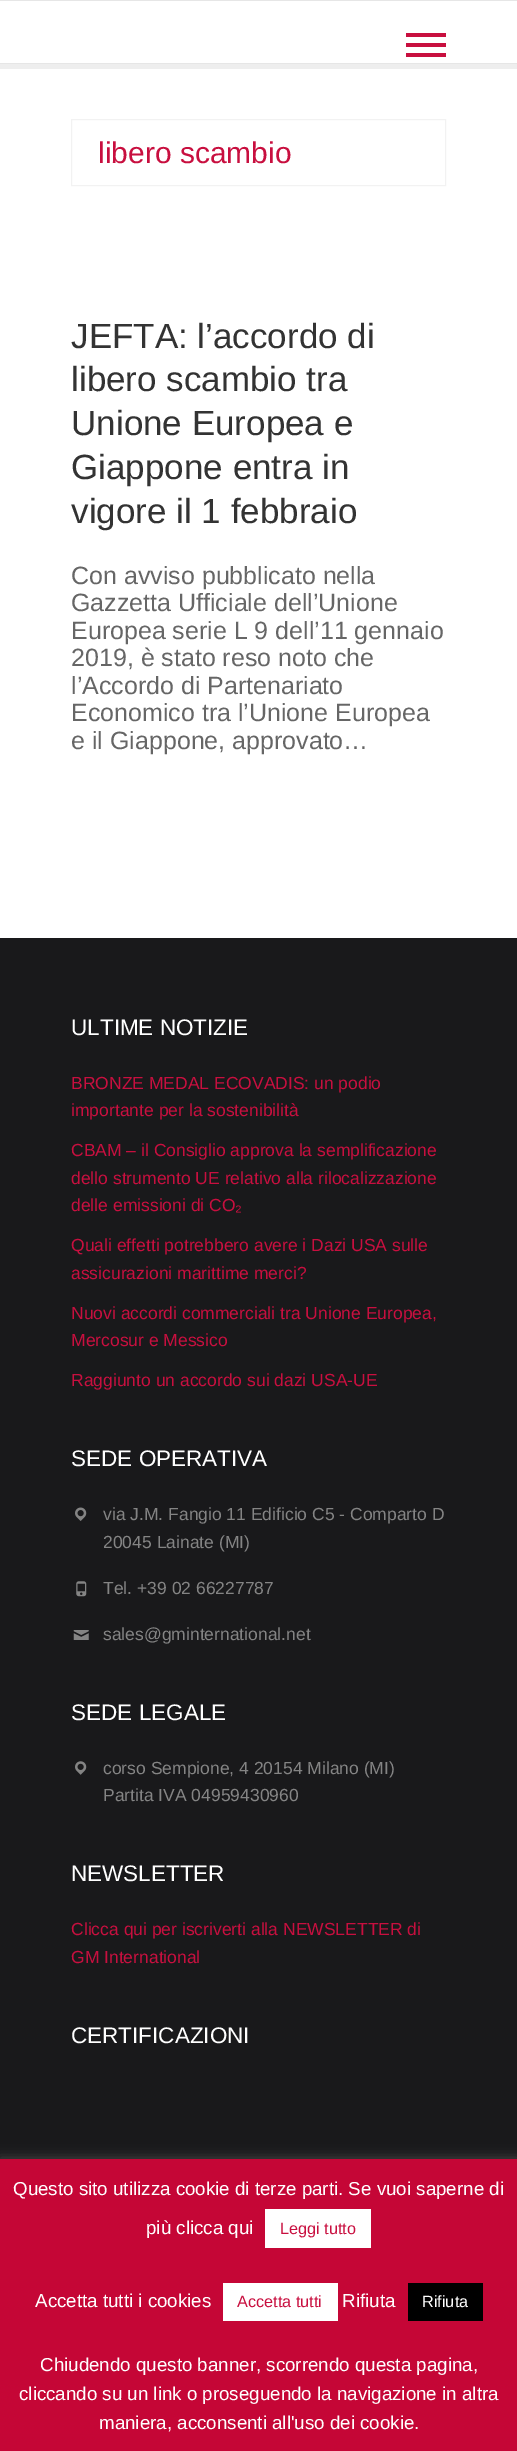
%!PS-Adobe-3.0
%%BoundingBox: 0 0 517 2451
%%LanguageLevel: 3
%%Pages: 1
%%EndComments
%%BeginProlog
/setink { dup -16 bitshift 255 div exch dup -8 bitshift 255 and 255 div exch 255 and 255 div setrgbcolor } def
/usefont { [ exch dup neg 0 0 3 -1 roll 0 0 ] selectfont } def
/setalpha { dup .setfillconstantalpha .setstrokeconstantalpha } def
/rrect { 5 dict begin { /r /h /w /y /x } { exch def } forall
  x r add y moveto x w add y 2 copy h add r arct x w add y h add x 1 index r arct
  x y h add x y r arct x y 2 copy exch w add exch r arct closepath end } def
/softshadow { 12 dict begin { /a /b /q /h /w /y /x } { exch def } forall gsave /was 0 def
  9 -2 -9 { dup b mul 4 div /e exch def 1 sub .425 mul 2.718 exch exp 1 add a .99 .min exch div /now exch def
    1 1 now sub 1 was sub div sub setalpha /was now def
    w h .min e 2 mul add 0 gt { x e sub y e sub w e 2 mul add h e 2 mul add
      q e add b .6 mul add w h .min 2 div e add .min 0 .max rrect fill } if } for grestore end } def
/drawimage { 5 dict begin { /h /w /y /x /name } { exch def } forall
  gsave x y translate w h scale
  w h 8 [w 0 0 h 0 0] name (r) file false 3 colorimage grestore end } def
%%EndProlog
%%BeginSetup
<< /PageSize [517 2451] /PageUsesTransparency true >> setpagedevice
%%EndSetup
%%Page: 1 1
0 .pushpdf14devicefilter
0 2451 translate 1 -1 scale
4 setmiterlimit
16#FFFFFF setink
0 0 517 2451 rectfill
[
    [0 0 517 1 16#E6E6E6]
    [406 33 40 4 16#C80F3F]
    [406 43 40 4 16#C80F3F]
    [406 53 40 4 16#C80F3F]
    [0 64 517 5 16#EEEEEE]
    [0 63 517 1 16#E6E6E6]
] { aload pop setink rectfill } forall
16#F2F2F2 setink
71.5 119.5 374 66 rectstroke
/LiberationSans-Regular 30 usefont
16#C80F3F setink
98 163 moveto (libero scambio) show
/LiberationSans-Regular 35 usefont
16#333333 setink
[
    [(JEFTA: l’accordo di) 71 348]
    [(libero scambio tra) 71 391]
    [(Unione Europea e) 71 435]
    [(Giappone entra in) 71 479]
    [(vigore il 1 febbraio) 71 523]
] { aload pop moveto show } forall
/LiberationSans-Regular 25 usefont
16#666666 setink
[
    [(Con avviso pubblicato nella) 71 584]
    [(Gazzetta Ufficiale dell’Unione) 71 611]
    [(Europea serie L 9 dell’11 gennaio) 71 639]
    [(2019, è stato reso noto che) 71 666]
    [(l’Accordo di Partenariato) 71 694]
    [(Economico tra l’Unione Europea) 71 721]
    [(e il Giappone, approvato…) 71 749]
] { aload pop moveto show } forall
16#19191B setink
0 938 517 1221 rectfill
/LiberationSans-Regular 22.5 usefont
16#FFFFFF setink
71 1035 moveto (ULTIME NOTIZIE) show
/LiberationSans-Regular 17.5 usefont
16#C80F3F setink
[
    [(BRONZE MEDAL ECOVADIS: un podio) 71 1089]
    [(importante per la sostenibilità) 71 1116]
    [(CBAM – il Consiglio approva la semplificazione) 71 1156]
    [(dello strumento UE relativo alla rilocalizzazione) 71 1184]
    [(delle emissioni di CO₂) 71 1211]
    [(Quali effetti potrebbero avere i Dazi USA sulle) 71 1251]
    [(assicurazioni marittime merci?) 71 1279]
    [(Nuovi accordi commerciali tra Unione Europea,) 71 1319]
    [(Mercosur e Messico) 71 1346]
    [(Raggiunto un accordo sui dazi USA-UE) 71 1386]
] { aload pop moveto show } forall
/LiberationSans-Regular 22.5 usefont
16#FFFFFF setink
71 1466 moveto (SEDE OPERATIVA) show
(img1.raw) 75 1507 12 14 drawimage
/LiberationSans-Regular 17.5 usefont
16#848484 setink
103 1520 moveto (via J.M. Fangio 11 Edificio C5 - Comparto D) show
103 1548 moveto (20045 Lainate \(MI\)) show
(img2.raw) 76 1581 11 16 drawimage
103 1594 moveto (Tel. +39 02 66227787) show
(img3.raw) 73 1630 16 10 drawimage
103 1640 moveto (sales@gminternational.net) show
/LiberationSans-Regular 22.5 usefont
16#FFFFFF setink
71 1720 moveto (SEDE LEGALE) show
(img4.raw) 75 1761 12 14 drawimage
/LiberationSans-Regular 17.5 usefont
16#848484 setink
103 1774 moveto (corso Sempione, 4 20154 Milano \(MI\)) show
103 1801 moveto (Partita IVA 04959430960) show
/LiberationSans-Regular 22.5 usefont
16#FFFFFF setink
71 1881 moveto (NEWSLETTER) show
/LiberationSans-Regular 17.5 usefont
16#C80F3F setink
71 1935 moveto (Clicca qui per iscriverti alla NEWSLETTER di) show
71 1963 moveto (GM International) show
/LiberationSans-Regular 22.5 usefont
16#FFFFFF setink
71 2043 moveto (CERTIFICAZIONI) show
16#ACABAB setink
0 2158 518 292 0 6 0.3 softshadow
16#C50636 setink
0 2159 517 292 rectfill
/LiberationSans-Regular 18.75 usefont
16#FFFFFF setink
13 2195 moveto (Questo sito utilizza cookie di terze parti. Se vuoi saperne di) show
146 2234 moveto (più clicca qui) show
265 2209 106 39 rectfill
/LiberationSans-Regular 16.25 usefont
16#C80F3F setink
280 2234 moveto (Leggi tutto) show
/LiberationSans-Regular 18.75 usefont
16#FFFFFF setink
35 2307 moveto (Accetta tutti i cookies) show
223 2283 115 38 rectfill
/LiberationSans-Regular 16.25 usefont
16#C80F3F setink
237 2307 moveto (Accetta tutti) show
/LiberationSans-Regular 18.75 usefont
16#FFFFFF setink
342 2307 moveto (Rifiuta) show
16#000000 setink
408 2283 75 38 rectfill
/LiberationSans-Regular 16.25 usefont
16#FFFFFF setink
422 2307 moveto (Rifiuta) show
/LiberationSans-Regular 18.75 usefont
[
    [(Chiudendo questo banner, scorrendo questa pagina,) 40 2371]
    [(cliccando su un link o proseguendo la navigazione in altra) 19 2400]
    [(maniera, acconsenti all'uso dei cookie.) 99 2429]
] { aload pop moveto show } forall
.poppdf14devicefilter showpage
%%EOF
